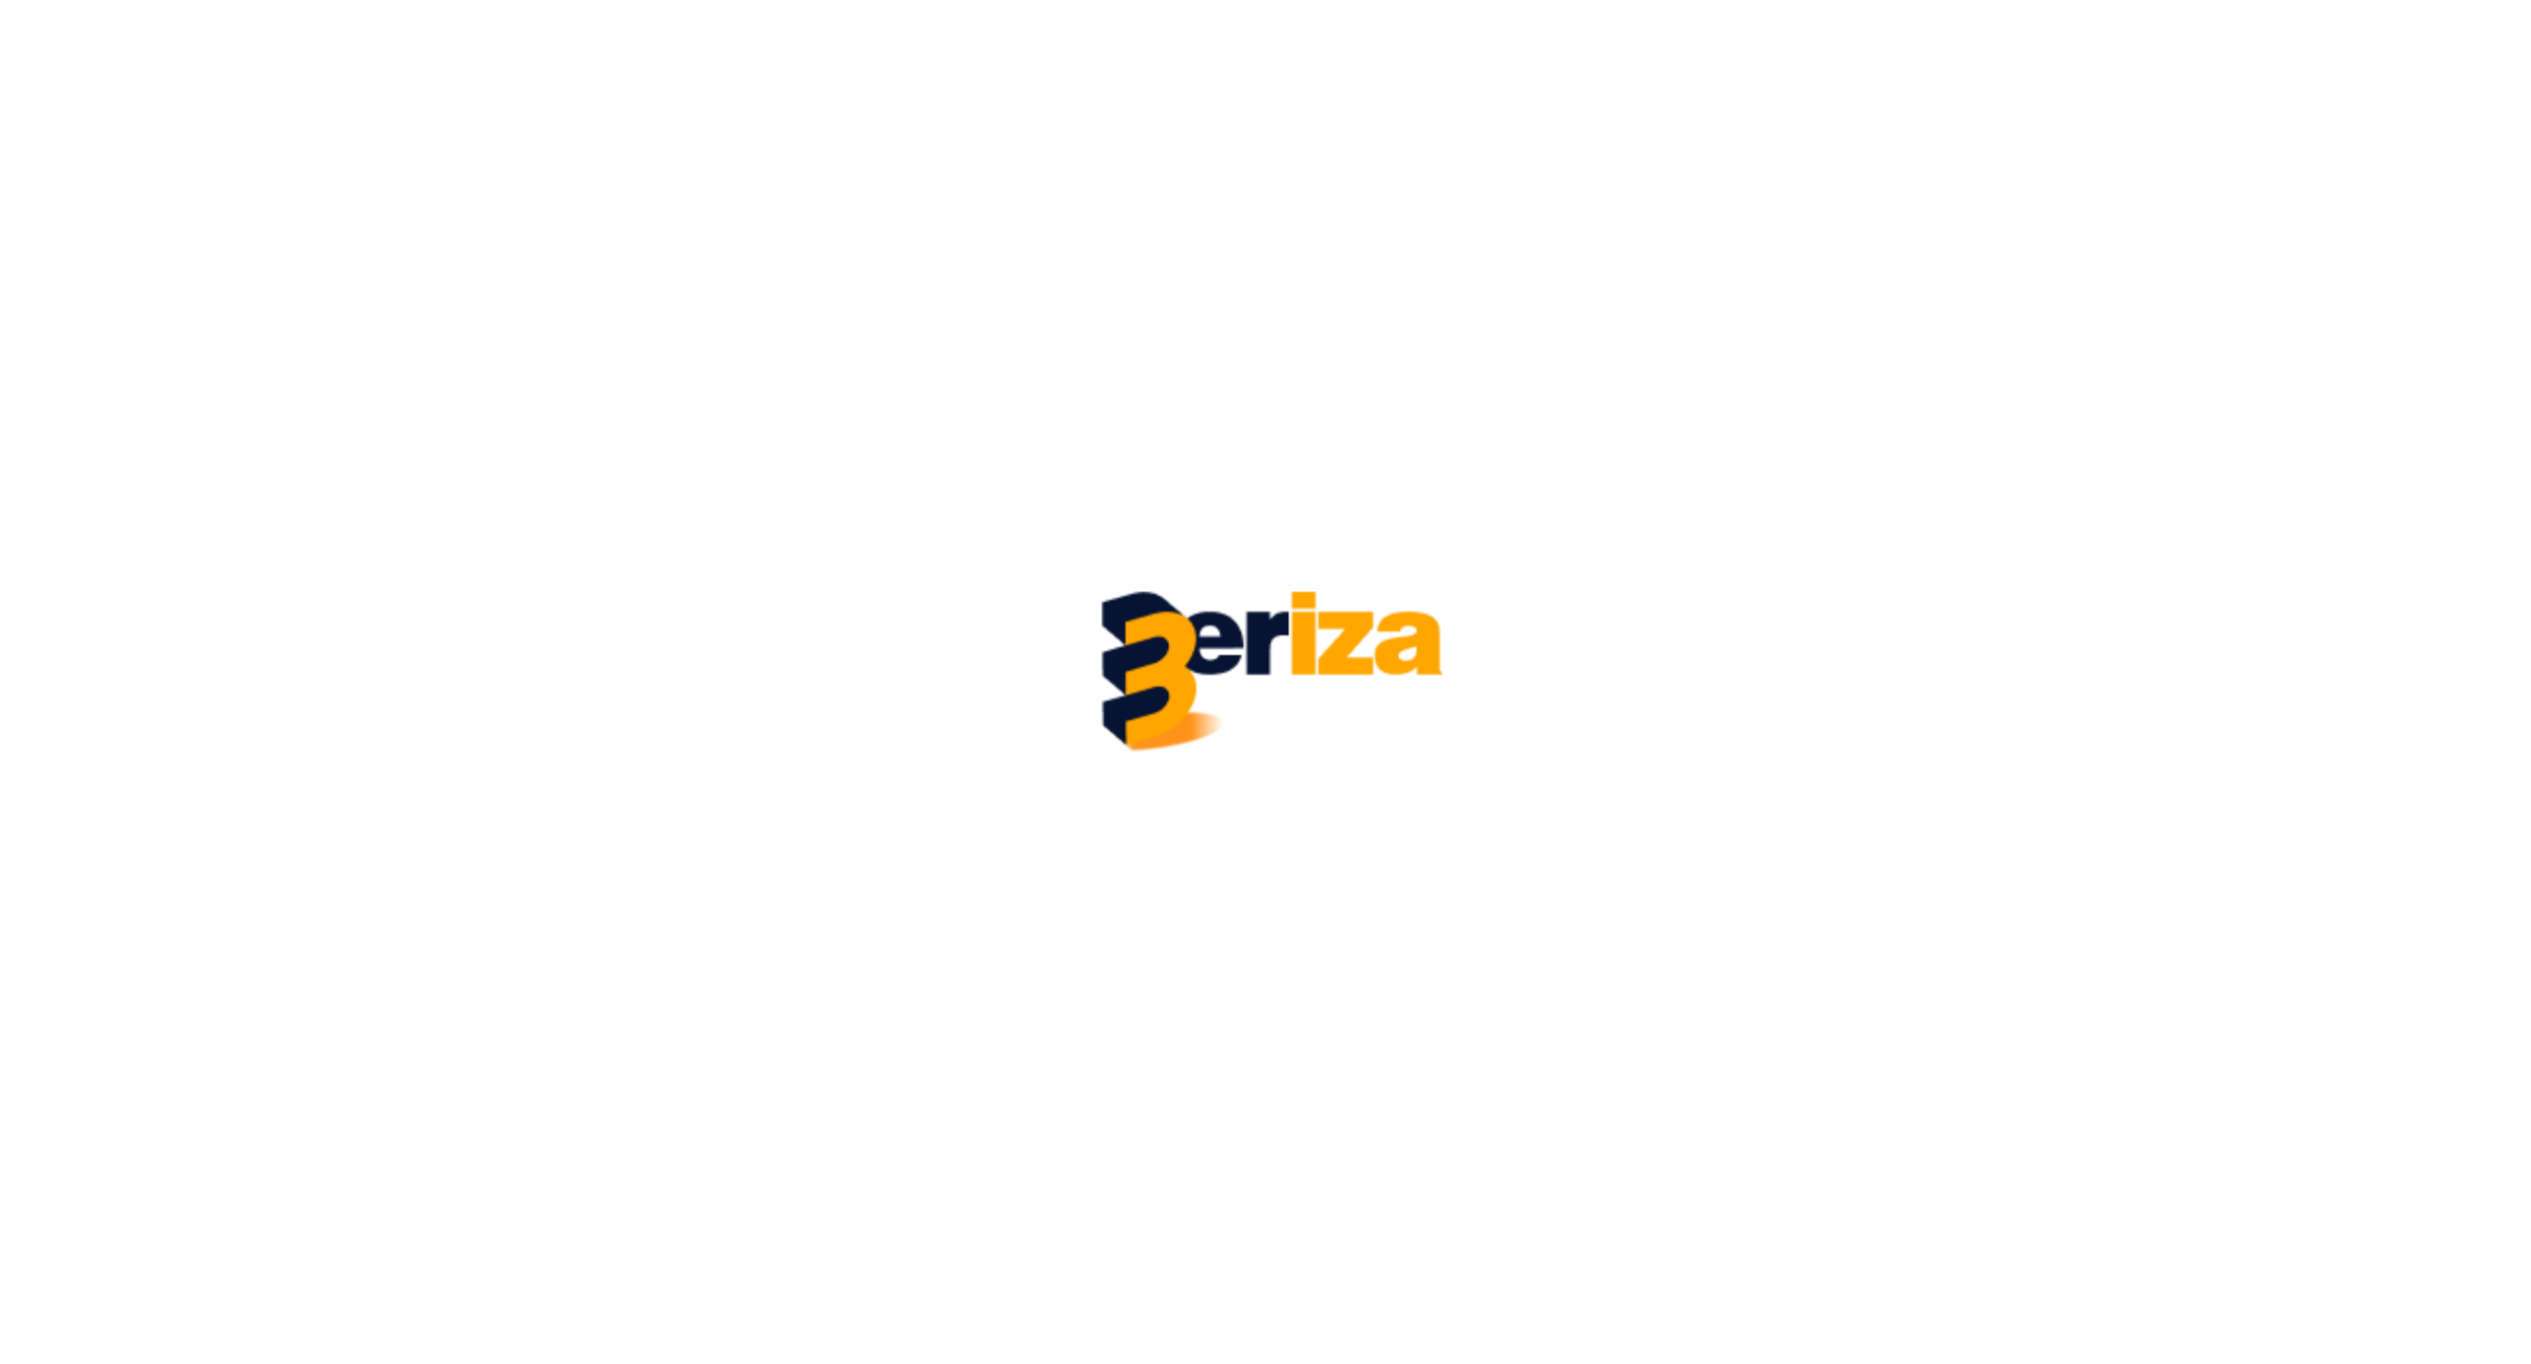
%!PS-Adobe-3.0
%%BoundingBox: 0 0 2531 1364
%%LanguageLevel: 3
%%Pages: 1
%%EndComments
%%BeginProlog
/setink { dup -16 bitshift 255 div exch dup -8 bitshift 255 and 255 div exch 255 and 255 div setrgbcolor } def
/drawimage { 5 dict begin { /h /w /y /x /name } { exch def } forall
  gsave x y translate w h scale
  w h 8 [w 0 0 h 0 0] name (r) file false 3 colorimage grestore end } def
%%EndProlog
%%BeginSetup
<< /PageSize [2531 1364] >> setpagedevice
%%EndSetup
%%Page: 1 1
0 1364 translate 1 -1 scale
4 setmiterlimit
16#FFFFFF setink
0 0 2531 1364 rectfill
(img1.raw) 1101 591 342 162 drawimage
showpage
%%EOF
